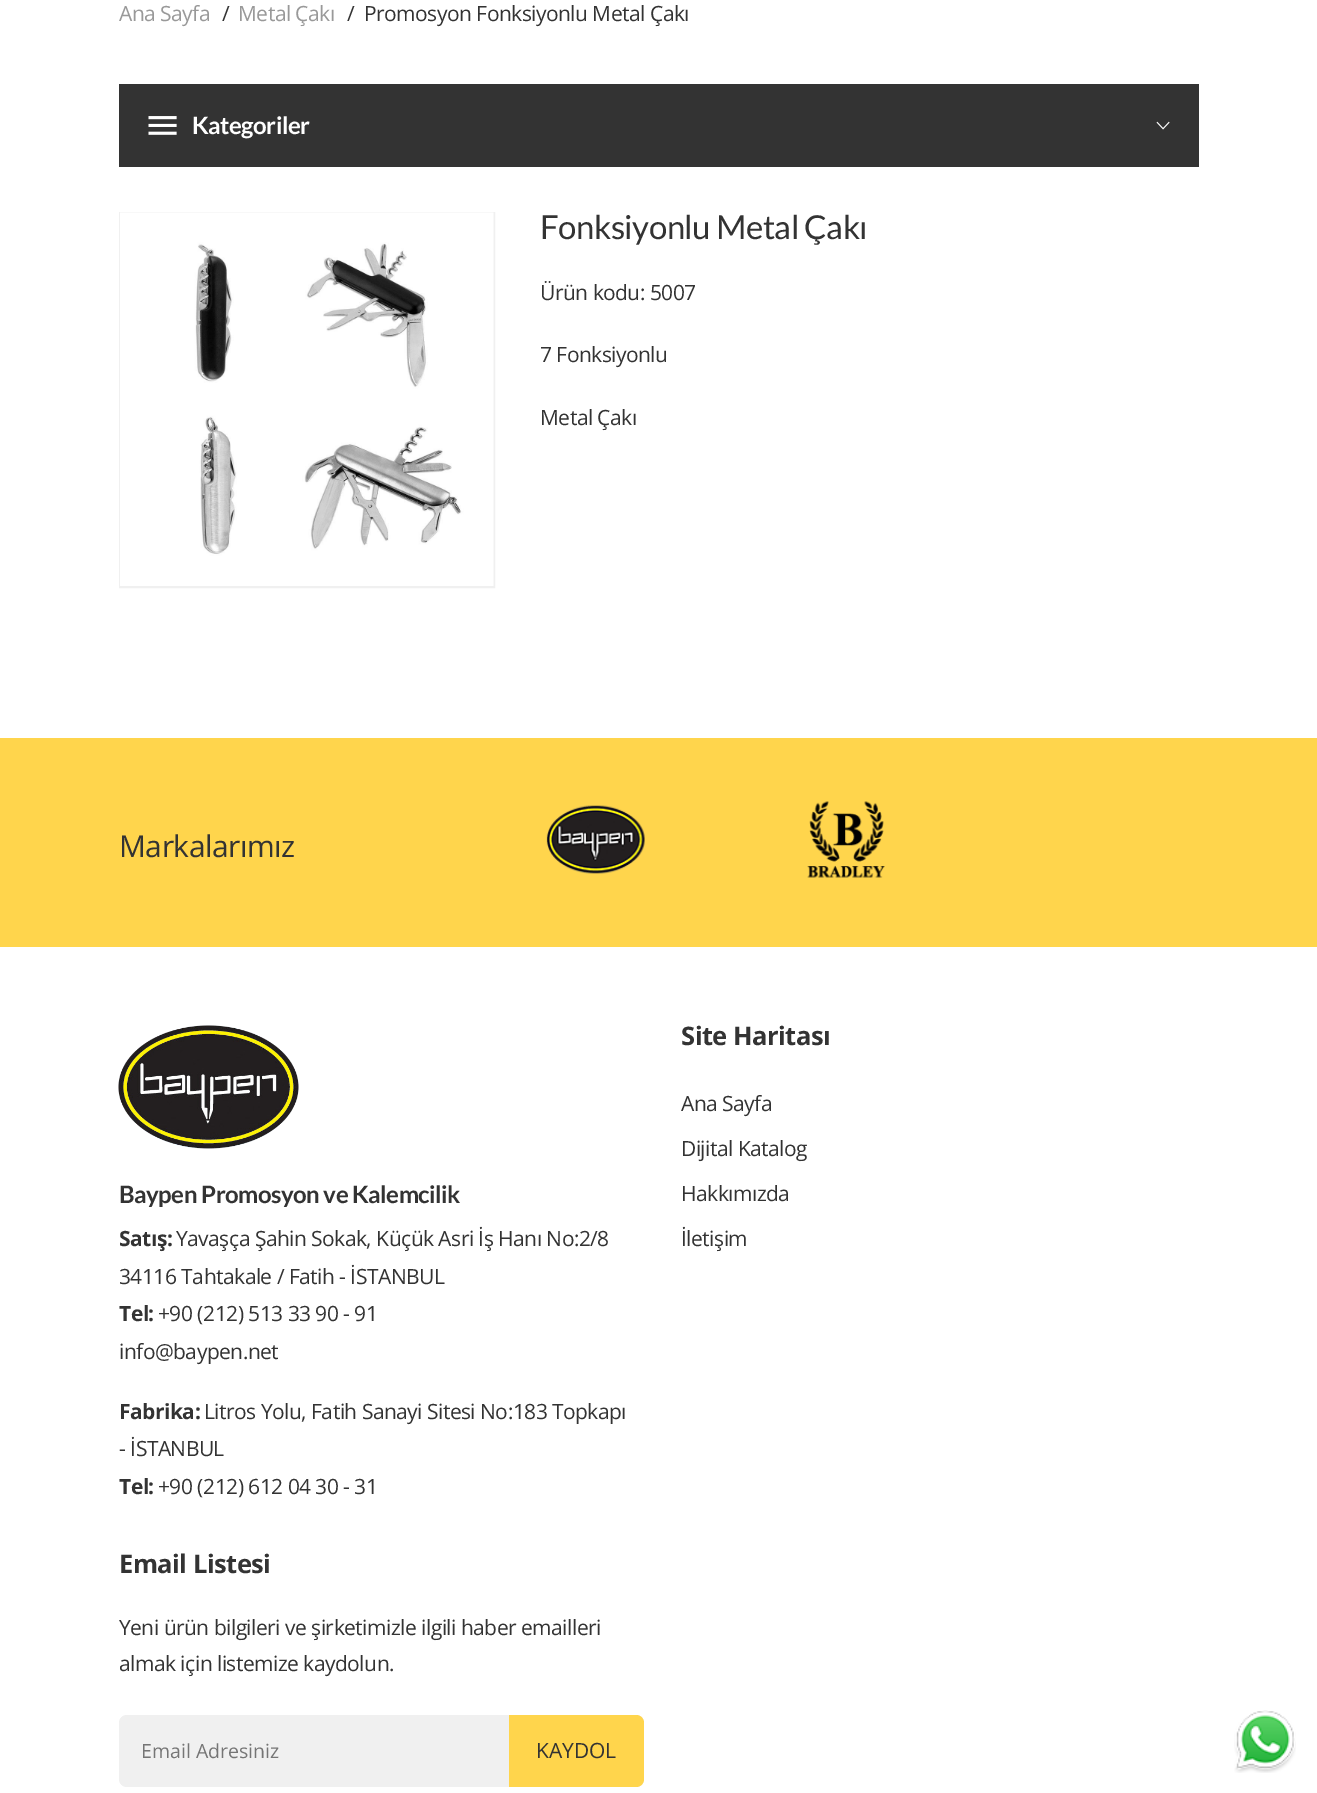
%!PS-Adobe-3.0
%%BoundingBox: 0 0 1317 1793
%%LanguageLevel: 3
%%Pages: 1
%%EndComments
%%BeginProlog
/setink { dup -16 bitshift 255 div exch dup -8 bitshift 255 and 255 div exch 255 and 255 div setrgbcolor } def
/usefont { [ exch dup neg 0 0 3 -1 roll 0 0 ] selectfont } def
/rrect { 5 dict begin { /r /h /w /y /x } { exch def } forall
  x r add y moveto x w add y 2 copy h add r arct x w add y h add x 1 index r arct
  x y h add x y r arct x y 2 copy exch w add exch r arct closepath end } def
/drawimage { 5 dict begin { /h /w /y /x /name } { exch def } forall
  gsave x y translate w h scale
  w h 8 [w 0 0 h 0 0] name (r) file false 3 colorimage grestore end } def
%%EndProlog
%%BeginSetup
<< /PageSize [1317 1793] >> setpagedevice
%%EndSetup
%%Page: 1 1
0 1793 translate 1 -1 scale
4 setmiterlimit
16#FFFFFF setink
0 0 1317 1793 rectfill
/OpenSans-Regular 21 usefont
16#999999 setink
119 21 moveto -0.52 0 (Ana Sayfa) ashow
16#333333 setink
222 21 moveto -0.52 0 (/) ashow
16#999999 setink
238 21 moveto -0.52 0 (Metal Çakı) ashow
16#333333 setink
347 21 moveto -0.52 0 (/) ashow
364 21 moveto -0.52 0 (Promosyon Fonksiyonlu Metal Çakı) ashow
119 84 1080 83 rectfill
(img1.raw) 148 116 29 19 drawimage
/Lato-Bold 24 usefont
16#FFFFFF setink
192 134 moveto -0.52 0 (Kategoriler) ashow
(img2.raw) 1156 121 14 9 drawimage
16#F0F0F0 setink
2 setlinewidth
120 213 374 374 rectstroke
(img3.raw) 120 212 374 374 drawimage
/Lato-Regular 33 usefont
16#333333 setink
540 239 moveto -0.52 0 (Fonksiyonlu Metal Çakı) ashow
/OpenSans-Regular 21 usefont
540 300 moveto -0.52 0 (Ürün kodu: 5007) ashow
540 362 moveto -0.52 0 (7 Fonksiyonlu) ashow
540 425 moveto -0.52 0 (Metal Çakı) ashow
16#FFD54C setink
0 738 1317 209 rectfill
/OpenSans-Regular 30 usefont
16#333333 setink
119 857 moveto -0.52 0 (Markalarımız) ashow
(img4.raw) 546 805 99 69 drawimage
(img5.raw) 807 801 78 77 drawimage
/OpenSans-Bold 25.5 usefont
681 1045 moveto -0.52 0 (Site Haritası) ashow
/OpenSans-Regular 21 usefont
681 1111 moveto -0.52 0 (Ana Sayfa) ashow
681 1156 moveto -0.52 0 (Dijital Katalog) ashow
681 1201 moveto -0.52 0 (Hakkımızda) ashow
681 1246 moveto -0.52 0 (İletişim) ashow
(img6.raw) 118 1025 181 124 drawimage
/Lato-Bold 24 usefont
119 1203 moveto -0.52 0 (Baypen Promosyon ve Kalemcilik) ashow
/OpenSans-Bold 21 usefont
119 1246 moveto -0.52 0 (Satış:) ashow
/OpenSans-Regular 21 usefont
176 1246 moveto -0.52 0 (Yavaşça Şahin Sokak, Küçük Asri İş Hanı No:2/8) ashow
119 1284 moveto -0.52 0 (34116 Tahtakale / Fatih - İSTANBUL) ashow
/OpenSans-Bold 21 usefont
119 1321 moveto -0.52 0 (Tel:) ashow
/OpenSans-Regular 21 usefont
158 1321 moveto -0.52 0 (+90 \(212\) 513 33 90 - 91) ashow
119 1359 moveto -0.52 0 (info@baypen.net) ashow
/OpenSans-Bold 21 usefont
119 1419 moveto -0.52 0 (Fabrika:) ashow
/OpenSans-Regular 21 usefont
204 1419 moveto -0.52 0 (Litros Yolu, Fatih Sanayi Sitesi No:183 Topkapı) ashow
119 1456 moveto -0.52 0 (- İSTANBUL) ashow
/OpenSans-Bold 21 usefont
119 1494 moveto -0.52 0 (Tel:) ashow
/OpenSans-Regular 21 usefont
158 1494 moveto -0.52 0 (+90 \(212\) 612 04 30 - 31) ashow
/OpenSans-Bold 25.5 usefont
119 1573 moveto -0.52 0 (Email Listesi) ashow
/OpenSans-Regular 21 usefont
119 1635 moveto -0.52 0 (Yeni ürün bilgileri ve şirketimizle ilgili haber emailleri) ashow
119 1671 moveto -0.52 0 (almak için listemize kaydolun.) ashow
16#F0F0F0 setink
119 1715 525 72 8 rrect fill
/OpenSans-Regular 19.5 usefont
16#757575 setink
141 1758 moveto (Email Adresiniz) show
16#FFD54C setink
509 1715 moveto 636 1715 lineto 640.5 1715 644 1718.5 644 1723 curveto 644 1779 lineto 644 1783.5 640.5 1787 636 1787 curveto 509 1787 lineto closepath fill
/OpenSans-Regular 21 usefont
16#333333 setink
536 1758 moveto (KAYDOL) show
(img7.raw) 1234 1710 62 63 drawimage
showpage
%%EOF
